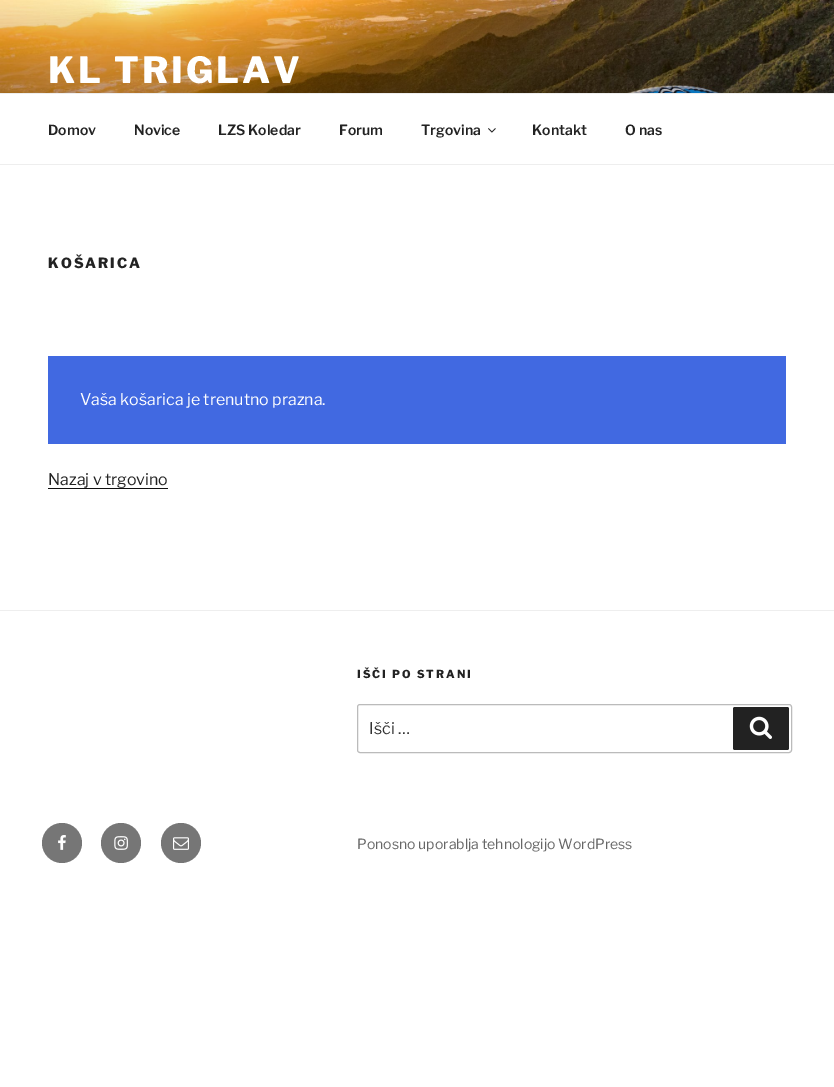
%!PS-Adobe-3.0
%%BoundingBox: 0 0 834 1087
%%LanguageLevel: 3
%%Pages: 1
%%EndComments
%%BeginProlog
/setink { dup -16 bitshift 255 div exch dup -8 bitshift 255 and 255 div exch 255 and 255 div setrgbcolor } def
/usefont { [ exch dup neg 0 0 3 -1 roll 0 0 ] selectfont } def
/disc { newpath 0 360 arc closepath } def
/rrect { 5 dict begin { /r /h /w /y /x } { exch def } forall
  x r add y moveto x w add y 2 copy h add r arct x w add y h add x 1 index r arct
  x y h add x y r arct x y 2 copy exch w add exch r arct closepath end } def
/drawimage { 5 dict begin { /h /w /y /x /name } { exch def } forall
  gsave x y translate w h scale
  w h 8 [w 0 0 h 0 0] name (r) file false 3 colorimage grestore end } def
%%EndProlog
%%BeginSetup
<< /PageSize [834 1087] >> setpagedevice
%%EndSetup
%%Page: 1 1
0 1087 translate 1 -1 scale
4 setmiterlimit
16#FFFFFF setink
0 0 834 1087 rectfill
(img1.raw) 0 0 834 93 drawimage
/LibreFranklin-Thin 36 usefont
48 83 moveto 2.9 0 (KL TRIGLAV) ashow
16#EEEEEE setink
0 93 834 1 rectfill
0 164 834 1 rectfill
/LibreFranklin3-Thin 14 usefont
16#222222 setink
[
    [(Domov) 48 135]
    [(Novice) 134 135]
    [(LZS Koledar) 218 135]
    [(Forum) 339 135]
    [(Trgovina) 421 135]
] { aload pop moveto show } forall
(img2.raw) 488 128 8 5 drawimage
532 135 moveto (Kontakt) show
625 135 moveto (O nas) show
/LibreFranklin-Thin 14 usefont
48 268 moveto 2 0 (KOŠARICA) ashow
16#4169E1 setink
48 356 738 88 rectfill
/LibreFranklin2-Thin 16 usefont
16#FFFFFF setink
80 405 moveto (Vaša košarica je trenutno prazna.) show
16#222222 setink
48 485 moveto (Nazaj v trgovino) show
16#0F0F0F setink
48 488 120 1 rectfill
16#EEEEEE setink
0 610 834 1 rectfill
/LibreFranklin-Thin 11 usefont
16#222222 setink
357 678 moveto 2 0 (IŠČI PO STRANI) ashow
16#BBBBBB setink
357.5 704.5 434 48 2.5 rrect stroke
/LibreFranklin2-Thin 16 usefont
16#333333 setink
369 734 moveto (Išči …) show
16#222222 setink
733 707 56 43 2 rrect fill
(img3.raw) 749 716 23 23 drawimage
16#767676 setink
62 843 20 disc fill
(img4.raw) 58 835 8 15 drawimage
121 843 20 disc fill
(img5.raw) 114 836 14 14 drawimage
181 843 20 disc fill
(img6.raw) 173 837 16 13 drawimage
/LibreFranklin2-Thin 14 usefont
16#666666 setink
357 849 moveto (Ponosno uporablja tehnologijo WordPress) show
showpage
%%EOF
